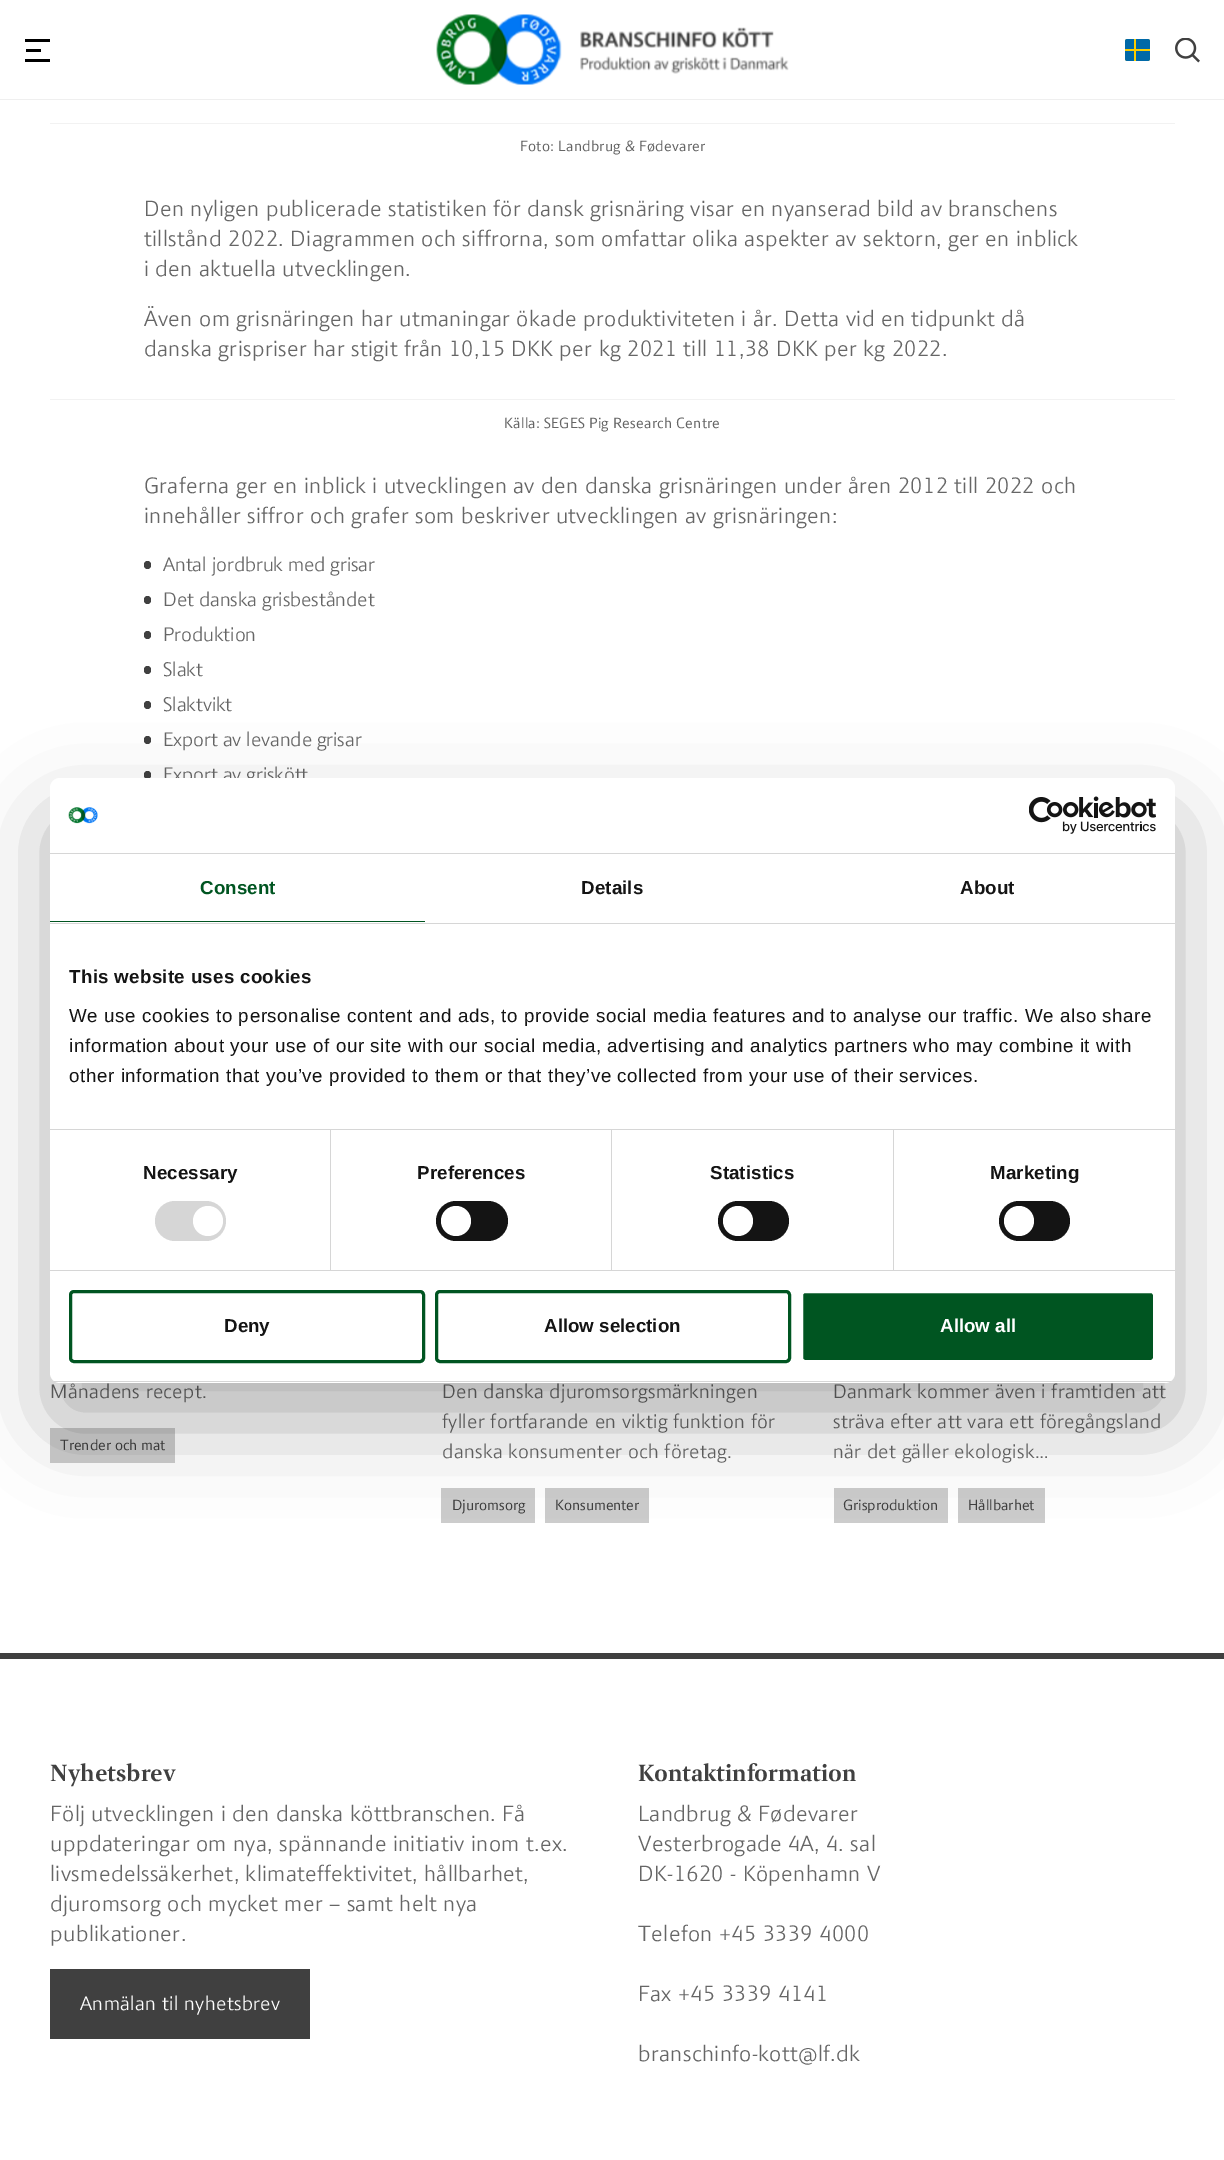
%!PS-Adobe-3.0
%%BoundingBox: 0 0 1224 2160
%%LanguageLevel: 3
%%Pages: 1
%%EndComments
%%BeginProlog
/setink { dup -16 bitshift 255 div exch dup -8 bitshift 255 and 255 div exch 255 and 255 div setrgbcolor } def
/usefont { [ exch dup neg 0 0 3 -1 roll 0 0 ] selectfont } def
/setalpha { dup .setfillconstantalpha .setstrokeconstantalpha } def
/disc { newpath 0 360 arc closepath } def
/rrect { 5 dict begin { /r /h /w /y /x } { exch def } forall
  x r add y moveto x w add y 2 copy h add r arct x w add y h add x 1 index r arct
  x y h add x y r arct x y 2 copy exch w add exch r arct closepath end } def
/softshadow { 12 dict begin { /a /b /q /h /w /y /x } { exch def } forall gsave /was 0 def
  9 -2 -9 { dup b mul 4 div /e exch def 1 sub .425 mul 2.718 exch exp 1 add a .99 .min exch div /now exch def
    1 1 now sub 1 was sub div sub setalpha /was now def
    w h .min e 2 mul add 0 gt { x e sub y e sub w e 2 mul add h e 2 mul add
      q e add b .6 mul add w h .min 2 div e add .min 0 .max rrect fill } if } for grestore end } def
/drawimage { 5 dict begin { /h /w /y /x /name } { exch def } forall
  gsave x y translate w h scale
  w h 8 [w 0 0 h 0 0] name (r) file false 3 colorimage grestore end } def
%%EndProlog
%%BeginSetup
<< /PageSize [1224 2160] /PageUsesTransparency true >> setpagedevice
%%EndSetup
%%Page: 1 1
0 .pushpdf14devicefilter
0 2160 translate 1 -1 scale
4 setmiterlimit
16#FFFFFF setink
0 0 1224 2160 rectfill
[
    [0 99 1224 1 16#EFEFEF]
    [25 39 25 3 16#000000]
    [26 49 15 3 16#000000]
    [25 59 25 3 16#000000]
] { aload pop setink rectfill } forall
(img1.raw) 436 14 353 71 drawimage
16#FDCD00 setink
1125 39 25 22 2.5 rrect fill
16#0169A8 setink
1127.5 39 moveto 1134 39 lineto 1134 49 lineto 1125 49 lineto 1125 41.5 lineto 1125 40 1126 39 1127.5 39 curveto closepath fill
1125 51 moveto 1134 51 lineto 1134 61 lineto 1127.5 61 lineto 1126 61 1125 60 1125 58.5 curveto closepath fill
1136 39 moveto 1147.5 39 lineto 1149 39 1150 40 1150 41.5 curveto 1150 49 lineto 1136 49 lineto closepath fill
1136 51 moveto 1150 51 lineto 1150 58.5 lineto 1150 60 1149 61 1147.5 61 curveto 1136 61 lineto closepath fill
(img2.raw) 1175 38 25 25 drawimage
16#F2F2F2 setink
50 123 1125 1 rectfill
/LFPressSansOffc-Medium 15 usefont
16#666666 setink
520 151 moveto 0.3 0 (Foto: Landbrug & Fødevarer) ashow
/LFPressSansOffc-Regular 22.5 usefont
144 216 moveto 0.45 0 (Den nyligen publicerade statistiken för dansk grisnäring visar en nyanserad bild av branschens) ashow
/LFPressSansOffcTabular-Regular 22.5 usefont
144 246 moveto 0.45 0 (tillstånd 2022. Diagrammen och siffrorna, som omfattar olika aspekter av sektorn, ger en inblick) ashow
/LFPressSansOffc-Regular 22.5 usefont
144 276 moveto 0.45 0 (i den aktuella utvecklingen.) ashow
144 326 moveto 0.45 0 (Även om grisnäringen har utmaningar ökade produktiviteten i år. Detta vid en tidpunkt då) ashow
/LFPressSansOffcTabular-Regular 22.5 usefont
144 356 moveto 0.45 0 (danska grispriser har stigit från 10,15 DKK per kg 2021 till 11,38 DKK per kg 2022.) ashow
16#F2F2F2 setink
50 399 1125 1 rectfill
/LFPressSansOffc-Medium 15 usefont
16#666666 setink
504 428 moveto 0.3 0 (Källa: SEGES Pig Research Centre) ashow
/LFPressSansOffcTabular-Regular 22.5 usefont
144 493 moveto 0.45 0 (Graferna ger en inblick i utvecklingen av den danska grisnäringen under åren 2012 till 2022 och) ashow
/LFPressSansOffc-Regular 22.5 usefont
144 523 moveto 0.45 0 (innehåller siffror och grafer som beskriver utvecklingen av grisnäringen:) ashow
16#404040 setink
144 561 7 8 3.5 rrect fill
/LFPressSansOffc-Regular 20 usefont
16#666666 setink
163 571 moveto (Antal jordbruk med grisar) show
16#404040 setink
144 596 7 8 3.5 rrect fill
16#666666 setink
163 606 moveto (Det danska grisbeståndet) show
16#404040 setink
144 631 7 8 3.5 rrect fill
16#666666 setink
163 641 moveto (Produktion) show
16#404040 setink
144 666 7 8 3.5 rrect fill
16#666666 setink
163 676 moveto (Slakt) show
16#404040 setink
144 701 7 8 3.5 rrect fill
16#666666 setink
163 711 moveto (Slaktvikt) show
16#404040 setink
144 736 7 8 3.5 rrect fill
16#666666 setink
163 746 moveto (Export av levande grisar) show
16#404040 setink
144 771 7 8 3.5 rrect fill
16#666666 setink
163 781 moveto (Export av griskött) show
50 1398 moveto 0.4 0 (Månadens recept.) ashow
16#CCCCCC setink
50 1428 125 35 rectfill
/LFPressSansOffc-Medium 15 usefont
16#404040 setink
60 1450 moveto (Trender och mat) show
/LFPressSansOffc-Regular 20 usefont
16#666666 setink
442 1398 moveto 0.4 0 (Den danska djuromsorgsmärkningen) ashow
442 1428 moveto 0.4 0 (fyller fortfarande en viktig funktion för) ashow
442 1458 moveto 0.4 0 (danska konsumenter och företag.) ashow
16#CCCCCC setink
441 1488 94 35 rectfill
/LFPressSansOffc-Medium 15 usefont
16#404040 setink
452 1510 moveto (Djuromsorg) show
16#CCCCCC setink
545 1488 104 35 rectfill
16#404040 setink
555 1510 moveto (Konsumenter) show
/LFPressSansOffc-Regular 20 usefont
16#666666 setink
833 1398 moveto 0.4 0 (Danmark kommer även i framtiden att) ashow
833 1428 moveto 0.4 0 (sträva efter att vara ett föregångsland) ashow
833 1458 moveto 0.4 0 (när det gäller ekologisk…) ashow
16#CCCCCC setink
834 1488 114 35 rectfill
/LFPressSansOffc-Medium 15 usefont
16#404040 setink
843 1510 moveto (Grisproduktion) show
16#CCCCCC setink
958 1488 87 35 rectfill
16#404040 setink
968 1510 moveto (Hållbarhet) show
0 1653 1224 6 rectfill
/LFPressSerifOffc-Bold 23.75 usefont
50 1781 moveto (Nyhetsbrev) show
/LFPressSansOffc-Regular 22.5 usefont
16#666666 setink
50 1821 moveto 0.45 0 (Följ utvecklingen i den danska köttbranschen. Få) ashow
50 1851 moveto 0.45 0 (uppdateringar om nya, spännande initiativ inom t.ex.) ashow
50 1881 moveto 0.45 0 (livsmedelssäkerhet, klimateffektivitet, hållbarhet,) ashow
50 1911 moveto 0.45 0 (djuromsorg och mycket mer – samt helt nya) ashow
50 1941 moveto 0.45 0 (publikationer.) ashow
16#404040 setink
50 1969 260 70 rectfill
/LFPressSansOffc-Regular 20 usefont
16#FFFFFF setink
80 2010 moveto 0.45 0 (Anmälan til nyhetsbrev) ashow
/LFPressSerifOffc-Bold 23.75 usefont
16#404040 setink
638 1781 moveto (Kontaktinformation) show
/LFPressSansOffc-Regular 22.5 usefont
16#666666 setink
638 1821 moveto 0.45 0 (Landbrug & Fødevarer) ashow
638 1851 moveto 0.45 0 (Vesterbrogade 4A, 4. sal) ashow
/LFPressSansOffcTabular-Regular 22.5 usefont
638 1881 moveto 0.45 0 (DK-1620 - Köpenhamn V) ashow
638 1941 moveto 0.45 0 (Telefon +45 3339 4000) ashow
638 2001 moveto 0.45 0 (Fax +45 3339 4141) ashow
/LFPressSansOffc-Regular 22.5 usefont
638 2061 moveto 0.45 0 (branschinfo-kott@lf.dk) ashow
16#000000 setink
50 818 1125 605 10 42.5 0.3 softshadow
16#FFFFFF setink
50 778 1125 605 10 rrect fill
16#D6D6D6 setink
50 853 1125 1 rectfill
(img3.raw) 68 807 30 17 drawimage
(img4.raw) 1029 796 127 38 drawimage
50 923 1125 1 rectfill
16#005521 setink
50 921 375 1 rectfill
/LiberationSans-Bold 18.75 usefont
200 894 moveto 0.1 0 (Consent) ashow
16#141414 setink
581 894 moveto 0.1 0 (Details) ashow
960 894 moveto 0.1 0 (About) ashow
16#D6D6D6 setink
50 1129 1125 1 rectfill
16#141414 setink
69 983 moveto 0.3 0 (This website uses cookies) ashow
/LiberationSans-Regular 18.75 usefont
69 1022 moveto 0.62 0 (We use cookies to personalise content and ads, to provide social media features and to analyse our traffic. We also share) ashow
69 1052 moveto 0.62 0 (information about your use of our site with our social media, advertising and analytics partners who may combine it with) ashow
69 1082 moveto 0.62 0 (other information that you’ve provided to them or that they’ve collected from your use of their services.) ashow
16#D6D6D6 setink
50 1270 1125 1 rectfill
330 1130 1 140 rectfill
/LiberationSans-Bold 18.75 usefont
16#141414 setink
143 1179 moveto 0.1 0 (Necessary) ashow
16#D6D6D6 setink
155 1201 71 40 20 rrect fill
16#FFFFFF setink
208 1221 15 disc fill
16#D6D6D6 setink
611 1130 1 140 rectfill
16#141414 setink
417 1179 moveto 0.1 0 (Preferences) ashow
436 1201 72 40 20 rrect fill
16#FFFFFF setink
456 1221 15 disc fill
16#D6D6D6 setink
893 1130 1 140 rectfill
16#141414 setink
710 1179 moveto 0.1 0 (Statistics) ashow
718 1201 71 40 20 rrect fill
16#FFFFFF setink
738 1221 15 disc fill
16#141414 setink
990 1179 moveto 0.1 0 (Marketing) ashow
999 1201 71 40 20 rrect fill
16#FFFFFF setink
1019 1221 15 disc fill
gsave
50 778 1125 605 10 rrect clip newpath
16#D6D6D6 setink
50 1381 1125 1 rectfill
grestore
16#005521 setink
3 setlinewidth
70.5 1291.5 353 70 3.5 rrect stroke
16#141414 setink
224 1332 moveto (Deny) show
16#005521 setink
436.5 1291.5 353 70 3.5 rrect stroke
16#141414 setink
544 1332 moveto (Allow selection) show
16#005521 setink
801.5 1291.5 353 70 3.5 rrect gsave fill grestore
16#FFFFFF setink
stroke
940 1332 moveto (Allow all) show
.poppdf14devicefilter showpage
%%EOF
